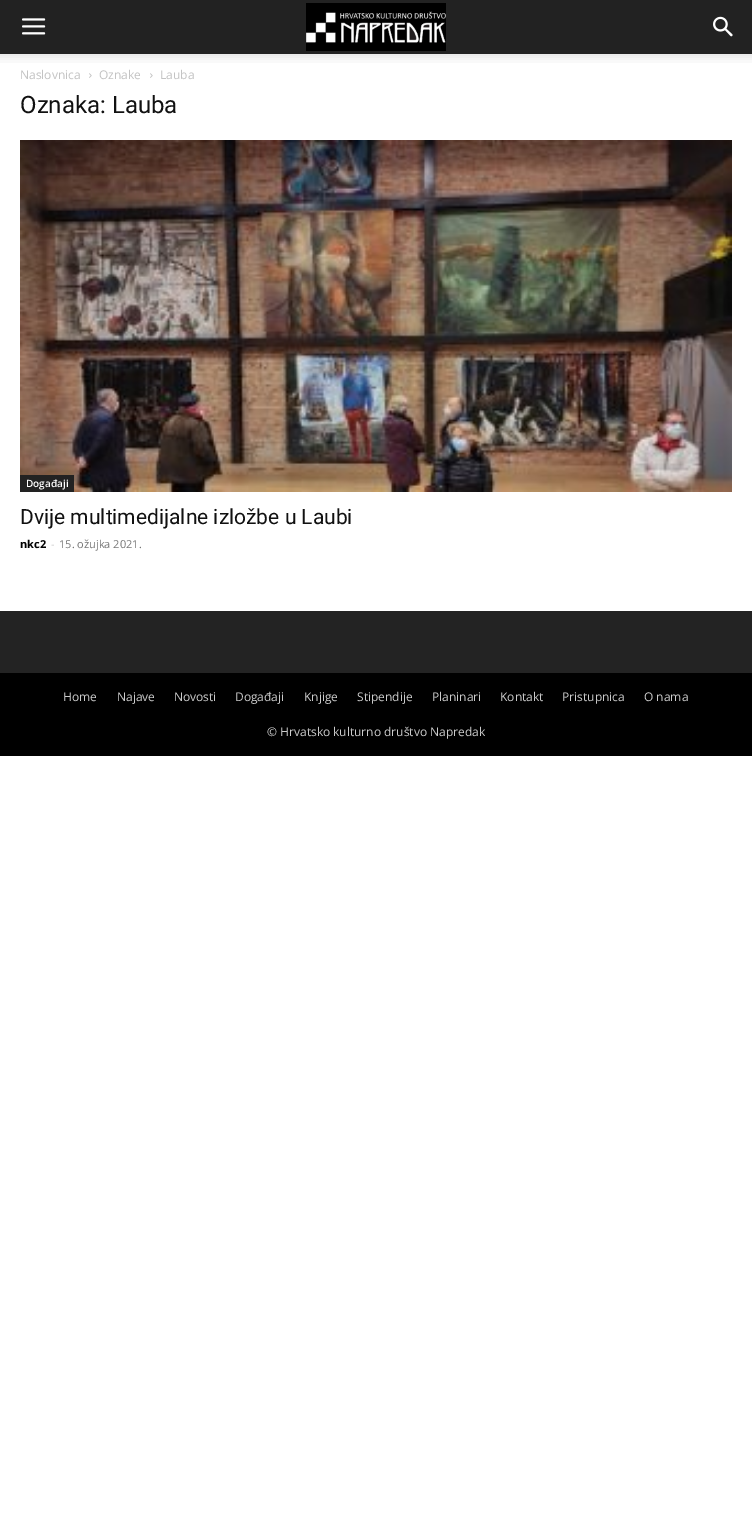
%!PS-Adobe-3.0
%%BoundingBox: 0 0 752 1532
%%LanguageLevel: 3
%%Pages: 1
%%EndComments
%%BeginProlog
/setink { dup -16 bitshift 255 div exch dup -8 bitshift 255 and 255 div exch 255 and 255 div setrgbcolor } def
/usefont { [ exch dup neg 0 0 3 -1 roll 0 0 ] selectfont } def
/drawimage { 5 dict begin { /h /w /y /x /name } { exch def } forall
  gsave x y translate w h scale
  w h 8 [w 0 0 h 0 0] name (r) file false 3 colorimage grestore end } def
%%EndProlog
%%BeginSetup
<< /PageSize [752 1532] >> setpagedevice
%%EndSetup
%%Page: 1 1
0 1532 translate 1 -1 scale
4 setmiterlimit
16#FFFFFF setink
0 0 752 1532 rectfill
16#222222 setink
0 0 752 54 rectfill
(img1.raw) 22 18 24 17 drawimage
(img2.raw) 306 3 140 48 drawimage
(img3.raw) 713 16 20 21 drawimage
(img4.raw) 0 54 752 9 drawimage
/OpenSans-Regular 12 usefont
16#C3C3C3 setink
20 79 moveto (Naslovnica) show
(img5.raw) 89 73 3 5 drawimage
99 79 moveto (Oznake) show
(img5.raw) 150 73 3 5 drawimage
160 79 moveto (Lauba) show
/Roboto-Regular 24 usefont
16#111111 setink
20 113 moveto (Oznaka: Lauba) show
(img6.raw) 20 140 712 352 drawimage
16#222222 setink
20 475 54 17 rectfill
/OpenSans-SemiBold 10 usefont
16#FFFFFF setink
26 487 moveto (Događaji) show
/Roboto-Regular 21 usefont
16#111111 setink
20 524 moveto (Dvije multimedijalne izložbe u Laubi) show
/OpenSans-Bold 11 usefont
16#000000 setink
20 548 moveto (nkc2) show
/OpenSans-Regular 11 usefont
16#CCCCCC setink
51 548 moveto (-) show
16#767676 setink
59 548 moveto (15. ožujka 2021.) show
16#232323 setink
0 611 752 62 rectfill
16#000000 setink
0 673 752 83 rectfill
/OpenSans-Regular 12 usefont
16#CCCCCC setink
[
    [(Home) 63 701]
    [(Najave) 117 701]
    [(Novosti) 174 701]
    [(Događaji) 235 701]
    [(Knjige) 304 701]
    [(Stipendije) 357 701]
    [(Planinari) 432 701]
    [(Kontakt) 500 701]
    [(Pristupnica) 562 701]
    [(O nama) 644 701]
    [(© Hrvatsko kulturno društvo Napredak) 267 736]
] { aload pop moveto show } forall
showpage
%%EOF
